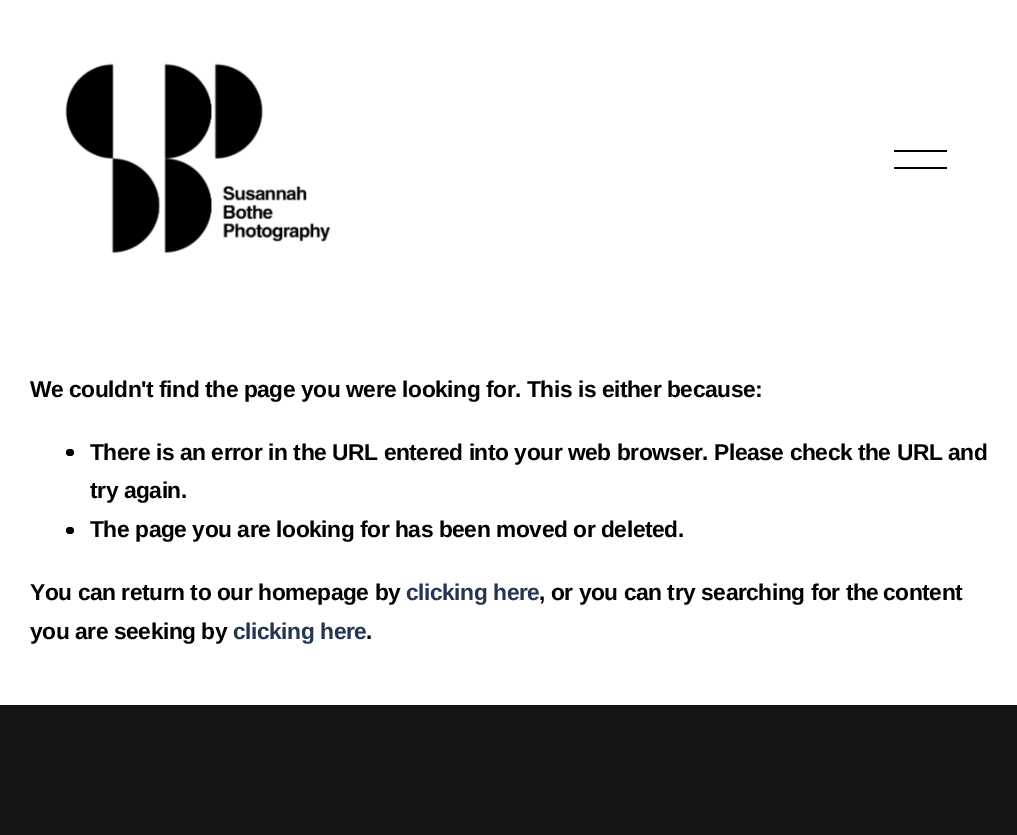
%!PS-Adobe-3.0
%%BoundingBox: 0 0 1017 835
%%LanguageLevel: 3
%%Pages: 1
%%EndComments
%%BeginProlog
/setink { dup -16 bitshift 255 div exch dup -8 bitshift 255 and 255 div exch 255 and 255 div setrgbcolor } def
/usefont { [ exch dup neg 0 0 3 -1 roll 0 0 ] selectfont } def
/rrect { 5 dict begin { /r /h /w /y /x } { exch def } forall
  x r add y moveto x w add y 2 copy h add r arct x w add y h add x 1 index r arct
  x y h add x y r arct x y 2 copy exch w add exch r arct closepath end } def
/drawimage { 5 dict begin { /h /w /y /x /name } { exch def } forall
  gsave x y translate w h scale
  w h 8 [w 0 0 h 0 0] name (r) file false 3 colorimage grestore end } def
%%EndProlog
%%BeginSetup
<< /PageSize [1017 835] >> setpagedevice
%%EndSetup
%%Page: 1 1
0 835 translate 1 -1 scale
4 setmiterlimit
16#FFFFFF setink
0 0 1017 835 rectfill
(img1.raw) 65 63 266 190 drawimage
16#000000 setink
894 150 53 2 rectfill
894 167 53 2 rectfill
/LiberationSans-Bold 22.8 usefont
30 397 moveto -0.45 0 (We couldn't find the page you were looking for. This is either because:) ashow
66 449 8 7 3.5 rrect fill
90 460 moveto -0.45 0 (There is an error in the URL entered into your web browser. Please check the URL and) ashow
90 498 moveto -0.45 0 (try again.) ashow
66 527 8 7 3.5 rrect fill
90 537 moveto -0.45 0 (The page you are looking for has been moved or deleted.) ashow
30 600 moveto -0.45 0 (You can return to our homepage by) ashow
16#253551 setink
406 600 moveto -0.45 0 (clicking here) ashow
16#000000 setink
539 600 moveto -0.45 0 (, or you can try searching for the) ashow
883 600 moveto -0.45 0 (content) ashow
30 639 moveto -0.45 0 (you are seeking by) ashow
16#253551 setink
233 639 moveto -0.45 0 (clicking here) ashow
16#000000 setink
366 639 moveto -0.45 0 (.) ashow
16#141414 setink
0 705 1017 130 rectfill
showpage
%%EOF
